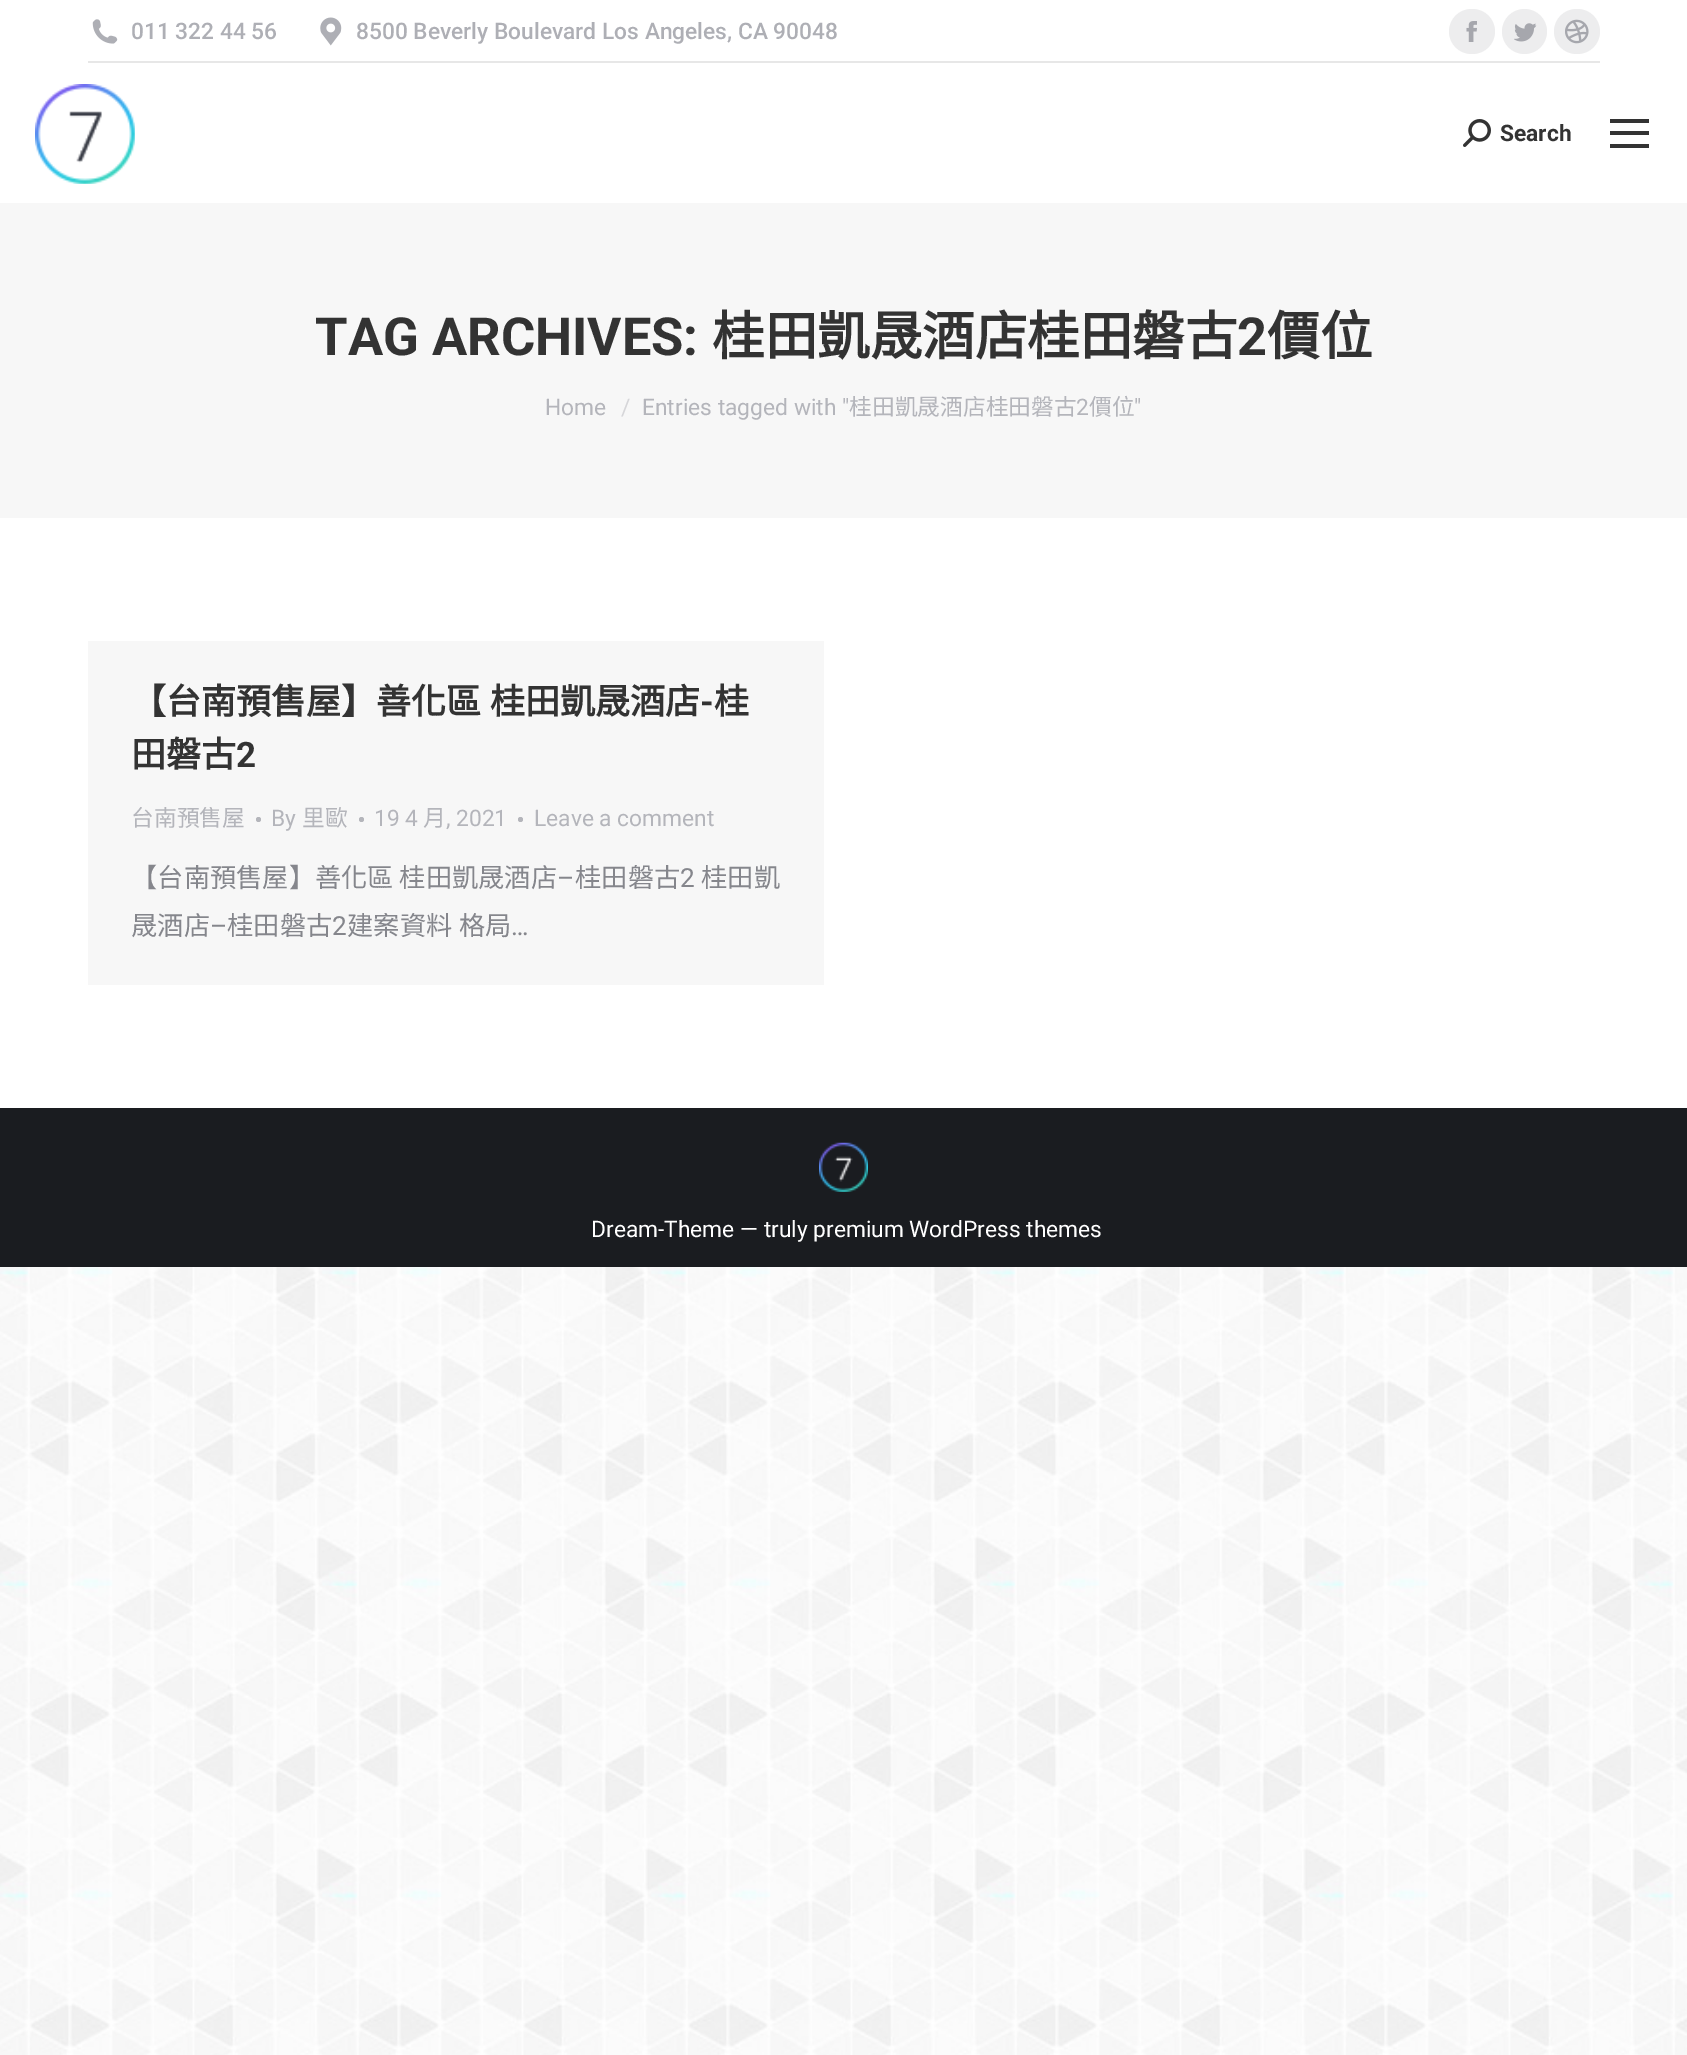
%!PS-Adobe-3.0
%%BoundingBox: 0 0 1687 2055
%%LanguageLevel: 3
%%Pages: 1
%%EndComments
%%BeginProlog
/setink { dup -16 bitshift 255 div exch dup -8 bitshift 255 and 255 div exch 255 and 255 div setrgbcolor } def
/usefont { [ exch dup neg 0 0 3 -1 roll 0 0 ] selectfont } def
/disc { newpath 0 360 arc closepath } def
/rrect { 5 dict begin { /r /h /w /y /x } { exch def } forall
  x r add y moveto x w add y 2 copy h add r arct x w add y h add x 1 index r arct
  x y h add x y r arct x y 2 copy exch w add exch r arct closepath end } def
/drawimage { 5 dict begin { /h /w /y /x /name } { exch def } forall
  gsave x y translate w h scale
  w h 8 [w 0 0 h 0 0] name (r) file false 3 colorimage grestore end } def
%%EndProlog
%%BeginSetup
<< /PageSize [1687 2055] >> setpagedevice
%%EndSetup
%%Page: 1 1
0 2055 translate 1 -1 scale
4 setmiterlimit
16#FFFFFF setink
0 0 1687 2055 rectfill
(img1.raw) 0 1267 1687 788 drawimage
(img2.raw) 92 19 26 25 drawimage
/Roboto-Medium 22.75 usefont
16#AEAFB5 setink
131 39 moveto (011 322 44 56) show
(img3.raw) 320 17 22 29 drawimage
356 39 moveto (8500 Beverly Boulevard Los Angeles, CA 90048) show
16#EDEDEE setink
1449 9 46 45 22.5 rrect fill
(img4.raw) 1466 21 11 21 drawimage
1524.5 31.5 22.5 disc fill
(img5.raw) 1514 23 23 19 drawimage
1554 9 46 45 22.5 rrect fill
(img6.raw) 1565 19 24 25 drawimage
16#E7E7E7 setink
88 61 1512 2 rectfill
(img7.raw) 35 84 100 100 drawimage
(img8.raw) 1463 119 28 28 drawimage
/Roboto-Bold 22.75 usefont
16#333333 setink
1500 141 moveto (Search) show
[
    [1610 119 39 4 16#333333]
    [1610 131 39 4 16#333333]
    [1610 144 39 4 16#333333]
    [0 203 1687 315 16#F7F7F7]
] { aload pop setink rectfill } forall
/Roboto-Bold 52.5 usefont
16#333333 setink
315 355 moveto (TAG ARCHIVES:) show
/NotoSansCJKTC-Bold 52.5 usefont
712 355 moveto (桂田凱晟酒店桂田磐古) show
/Roboto-Bold 52.5 usefont
1237 355 moveto (2) show
/NotoSansCJKTC-Bold 52.5 usefont
1267 355 moveto (價位) show
/Roboto-Regular 22.75 usefont
16#B4B5BB setink
545 415 moveto (Home) show
16#D6D6D9 setink
621 415 moveto (/) show
16#B4B5BB setink
642 415 moveto (Entries tagged with ") show
/NotoSansCJKTC-Regular 22.75 usefont
849 415 moveto (桂田凱晟酒店桂田磐古) show
/Roboto-Regular 22.75 usefont
1076 415 moveto (2) show
/NotoSansCJKTC-Regular 22.75 usefont
1089 415 moveto (價位) show
/Roboto-Regular 22.75 usefont
1134 415 moveto (") show
16#F7F7F7 setink
88 641 736 344 rectfill
/NotoSansCJKTC-Bold 35 usefont
16#333333 setink
131 714 moveto 1 0 32 (【台南預售屋】善化區 桂田凱晟酒店) widthshow
/Roboto-Bold 35 usefont
700 714 moveto (-) show
/NotoSansCJKTC-Bold 35 usefont
714 714 moveto (桂) show
131 767 moveto (田磐古) show
/Roboto-Bold 35 usefont
236 767 moveto (2) show
/NotoSansCJKTC-Regular 22.75 usefont
16#B4B5BB setink
131 826 moveto (台南預售屋) show
258.5 819.5 2.5 disc fill
/Roboto-Regular 22.75 usefont
271 826 moveto (By) show
/NotoSansCJKTC-Regular 22.75 usefont
302 826 moveto (里歐) show
361.5 819.5 2.5 disc fill
/Roboto-Regular 22.75 usefont
374 826 moveto (19 4) show
/NotoSansCJKTC-Regular 22.75 usefont
423 826 moveto (月) show
/Roboto-Regular 22.75 usefont
446 826 moveto (, 2021) show
520.5 819.5 2.5 disc fill
534 826 moveto (Leave a comment) show
/NotoSansCJKTC-Regular 26.25 usefont
16#85868C setink
131 887 moveto (【台南預售屋】善化區 桂田凱晟酒店) show
/Roboto-Regular 26.25 usefont
557 887 moveto (–) show
/NotoSansCJKTC-Regular 26.25 usefont
575 887 moveto (桂田磐古) show
/Roboto-Regular 26.25 usefont
680 887 moveto (2) show
/NotoSansCJKTC-Regular 26.25 usefont
701 887 moveto (桂田凱) show
131 935 moveto (晟酒店) show
/Roboto-Regular 26.25 usefont
210 935 moveto (–) show
/NotoSansCJKTC-Regular 26.25 usefont
227 935 moveto (桂田磐古) show
/Roboto-Regular 26.25 usefont
332 935 moveto (2) show
/NotoSansCJKTC-Regular 26.25 usefont
347 935 moveto 1 0 32 (建案資料 格局) widthshow
/Roboto-Regular 26.25 usefont
511 935 moveto (…) show
16#1A1C20 setink
0 1108 1687 159 rectfill
(img9.raw) 819 1142 49 50 drawimage
/Roboto-Regular 22.75 usefont
16#FFFFFF setink
591 1237 moveto (Dream-Theme — truly premium WordPress themes) show
showpage
%%EOF
